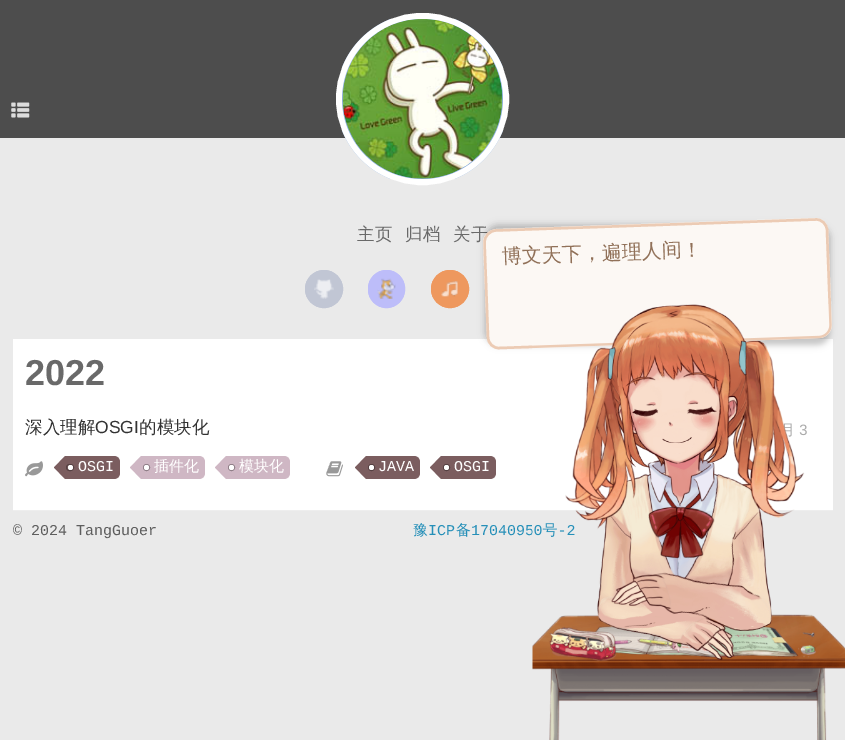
%!PS-Adobe-3.0
%%BoundingBox: 0 0 845 740
%%LanguageLevel: 3
%%Pages: 1
%%EndComments
%%BeginProlog
/setink { dup -16 bitshift 255 div exch dup -8 bitshift 255 and 255 div exch 255 and 255 div setrgbcolor } def
/usefont { [ exch dup neg 0 0 3 -1 roll 0 0 ] selectfont } def
/setalpha { dup .setfillconstantalpha .setstrokeconstantalpha } def
/disc { newpath 0 360 arc closepath } def
/rrect { 5 dict begin { /r /h /w /y /x } { exch def } forall
  x r add y moveto x w add y 2 copy h add r arct x w add y h add x 1 index r arct
  x y h add x y r arct x y 2 copy exch w add exch r arct closepath end } def
/softshadow { 12 dict begin { /a /b /q /h /w /y /x } { exch def } forall gsave /was 0 def
  9 -2 -9 { dup b mul 4 div /e exch def 1 sub .425 mul 2.718 exch exp 1 add a .99 .min exch div /now exch def
    1 1 now sub 1 was sub div sub setalpha /was now def
    w h .min e 2 mul add 0 gt { x e sub y e sub w e 2 mul add h e 2 mul add
      q e add b .6 mul add w h .min 2 div e add .min 0 .max rrect fill } if } for grestore end } def
/drawimage { 5 dict begin { /h /w /y /x /name } { exch def } forall
  gsave x y translate w h scale
  w h 8 [w 0 0 h 0 0] name (r) file false 3 colorimage grestore end } def
%%EndProlog
%%BeginSetup
<< /PageSize [845 740] /PageUsesTransparency true >> setpagedevice
%%EndSetup
%%Page: 1 1
0 .pushpdf14devicefilter
0 740 translate 1 -1 scale
4 setmiterlimit
16#EAEAEA setink
0 0 845 740 rectfill
16#4D4D4D setink
0 0 845 138 rectfill
(img1.raw) 11 102 19 16 drawimage
16#88ACDB setink
339 16 167 166 83 rrect gsave fill grestore
16#FFFFFF setink
6 setlinewidth
stroke
(img2.raw) 342 19 161 160 drawimage
/WenQuanYiZenHei-Medium 17.5 usefont
16#696969 setink
[
    [(主页) 357 240]
    [(归档) 405 240]
    [(关于) 453 240]
] { aload pop moveto show } forall
16#C1C6D4 setink
324 289 19 disc fill
(img3.raw) 314 279 20 20 drawimage
1 setlinewidth
324 289 18.5 disc stroke
16#BDBDF9 setink
368 270 37 38 18.5 rrect fill
(img4.raw) 377 278 19 21 drawimage
368.5 270.5 36 37 18 rrect stroke
16#EE985E setink
450 289 19 disc fill
(img5.raw) 441 281 17 16 drawimage
450 289 18.5 disc stroke
16#FFFFFF setink
13 339 820 171 rectfill
16#EEEEEE setink
13 510 820 1 rectfill
/LiberationSans-Bold 36 usefont
16#696969 setink
25 385 moveto (2022) show
/WenQuanYiZenHei-Medium 17.5 usefont
16#333333 setink
25 433 moveto (深入理解) show
/LiberationSans-Regular 17.5 usefont
95 433 moveto (OSGI) show
/WenQuanYiZenHei-Medium 17.5 usefont
139 433 moveto (的模块化) show
(img6.raw) 743 421 2 5 drawimage
/WenQuanYiZenHei-Medium 15 usefont
16#AAAAAA setink
780 435 moveto (月) show
/LiberationSans-Regular 15 usefont
799 435 moveto (3) show
(img7.raw) 25 461 18 16 drawimage
16#7B5D5F setink
65 456 moveto 114 456 lineto 117.5 456 120 458.5 120 462 curveto 120 473 lineto 120 476.5 117.5 479 114 479 curveto 65 479 lineto closepath fill
65 456 moveto 65 479 lineto 54 467.5 lineto closepath fill
16#564143 setink
66.5 464.5 7 6 3 rrect stroke
16#FFFFFF setink
70.5 467.5 2.5 disc fill
/LiberationMono-Regular 15 usefont
78 471 moveto (OSGI) show
16#CFB7C4 setink
141 456 moveto 199 456 lineto 202.5 456 205 458.5 205 462 curveto 205 473 lineto 205 476.5 202.5 479 199 479 curveto 141 479 lineto closepath fill
141 456 moveto 141 479 lineto 130 467.5 lineto closepath fill
16#918089 setink
146.5 467.5 3 disc stroke
16#FFFFFF setink
146.5 467.5 2.5 disc fill
/WenQuanYiZenHei-Medium 15 usefont
154 471 moveto (插件化) show
16#CFB7C4 setink
226 456 moveto 284 456 lineto 287.5 456 290 458.5 290 462 curveto 290 473 lineto 290 476.5 287.5 479 284 479 curveto 226 479 lineto closepath fill
226 456 moveto 226 479 lineto 215 467.5 lineto closepath fill
16#918089 setink
231.5 467.5 3 disc stroke
16#FFFFFF setink
231.5 467.5 2.5 disc fill
239 471 moveto (模块化) show
(img8.raw) 326 461 17 16 drawimage
16#7B5D5F setink
366 456 moveto 414 456 lineto 417.5 456 420 458.5 420 462 curveto 420 473 lineto 420 476.5 417.5 479 414 479 curveto 366 479 lineto closepath fill
366 456 moveto 366 479 lineto 355 467.5 lineto closepath fill
16#564143 setink
371.5 467.5 3 disc stroke
16#FFFFFF setink
371.5 467.5 2.5 disc fill
/LiberationMono-Regular 15 usefont
378 471 moveto (JAVA) show
16#7B5D5F setink
441 456 moveto 490 456 lineto 493.5 456 496 458.5 496 462 curveto 496 473 lineto 496 476.5 493.5 479 490 479 curveto 441 479 lineto closepath fill
441 456 moveto 441 479 lineto 430 467.5 lineto closepath fill
16#564143 setink
446.5 467.5 3 disc stroke
16#FFFFFF setink
446.5 467.5 2.5 disc fill
454 471 moveto (OSGI) show
16#5E5E5E setink
13 535 moveto (© 2024 TangGuoer) show
/WenQuanYiZenHei-Medium 15 usefont
16#258FB8 setink
413 535 moveto (豫) show
/LiberationMono-Regular 15 usefont
428 535 moveto (ICP) show
/WenQuanYiZenHei-Medium 15 usefont
456 535 moveto (备) show
/LiberationMono-Regular 15 usefont
471 535 moveto (17040950) show
/WenQuanYiZenHei-Medium 15 usefont
543 535 moveto (号) show
/LiberationMono-Regular 15 usefont
558 535 moveto (-2) show
16#000000 setink
485 225 345 120 13 2.5 0.12 softshadow
485 225 345 120 13 4 0.12 softshadow
16#FCF8F4 setink
496 229 moveto 815 218 lineto 822 218 828 223 828 230 curveto 832 325 lineto 832 332 826 338 819 338 curveto 500 349 lineto 493 350 487 344 487 337 curveto 483 242 lineto 483 235 489 230 496 229 curveto closepath fill
16#ECCBB4 setink
2.5 setlinewidth
495.5 230.5 moveto 815.5 219.5 lineto 821.5 219 827 224 827 230.5 curveto 830.5 325 lineto 830.5 331.5 825.5 336.5 819.5 337 curveto 499.5 348 lineto 493.5 348.5 488 343.5 488 337 curveto 484.5 242.5 lineto 484.5 236 489.5 231 495.5 230.5 curveto closepath stroke
/WenQuanYiZenHei-Medium 20 usefont
16#917159 setink
gsave 502 263 translate -2 rotate 0 0 moveto (博文天下，遍理人间！) show grestore
(img9.raw) 532 304 313 436 drawimage
.poppdf14devicefilter showpage
%%EOF
